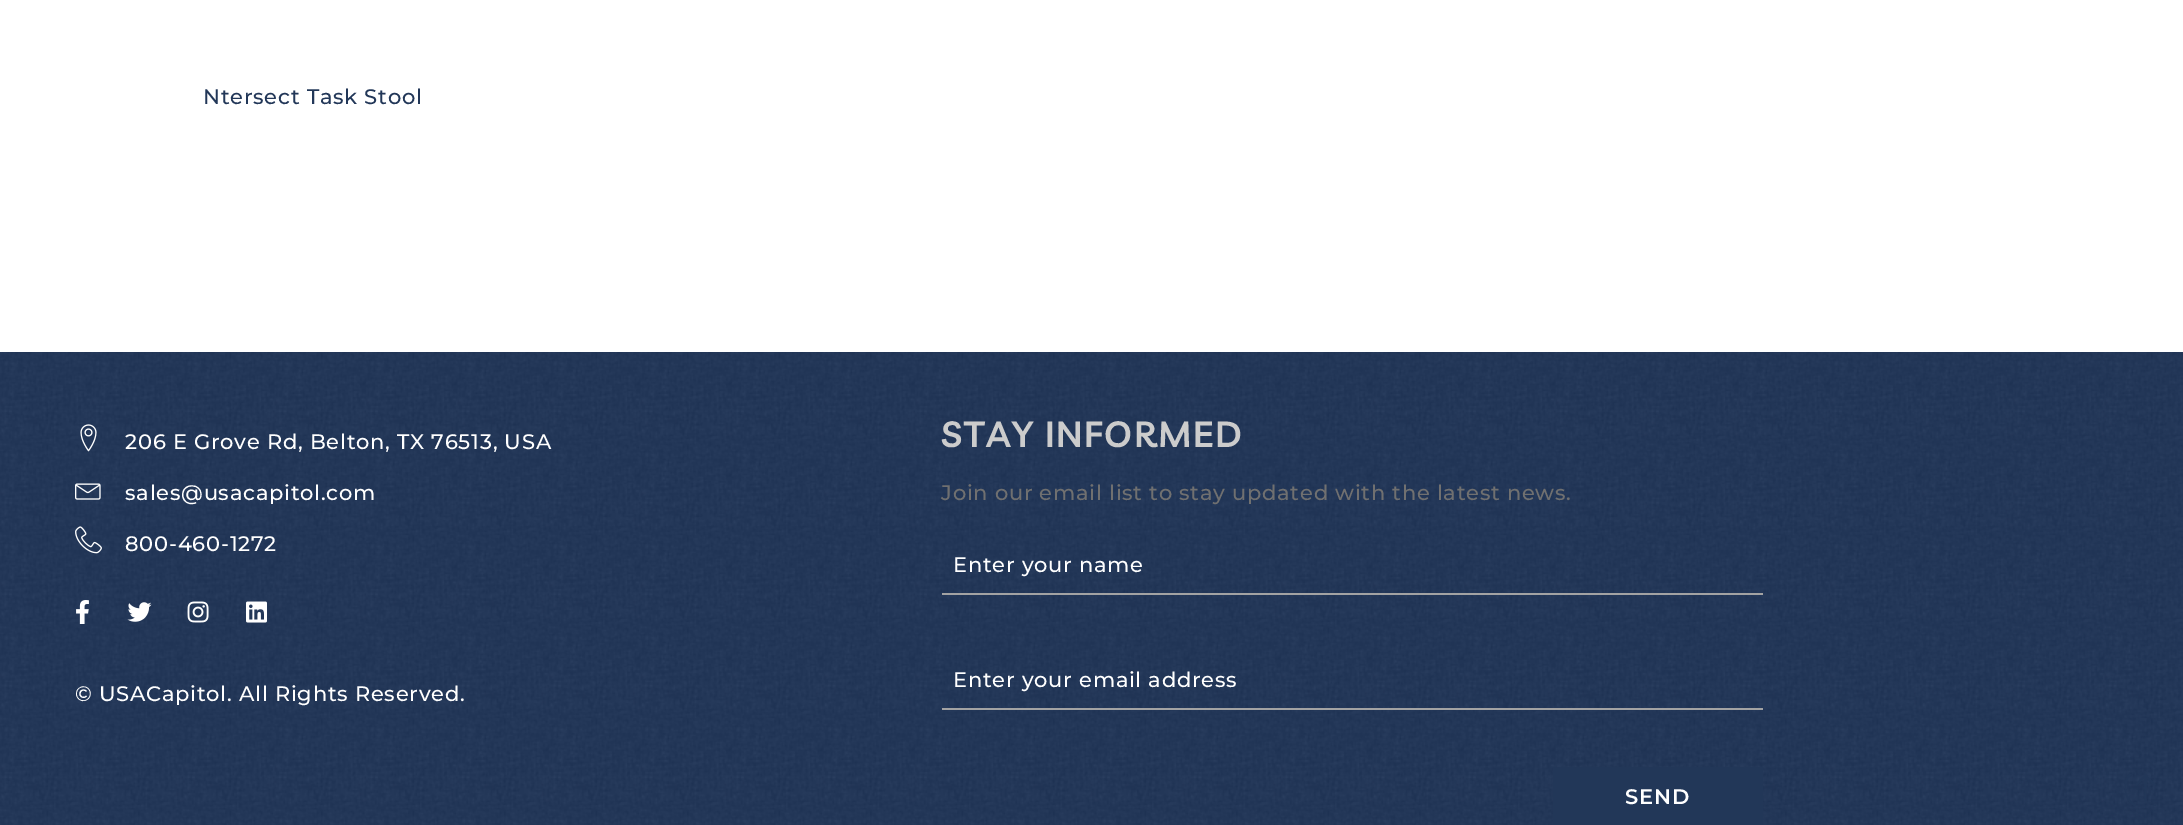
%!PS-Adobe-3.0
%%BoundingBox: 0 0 2183 825
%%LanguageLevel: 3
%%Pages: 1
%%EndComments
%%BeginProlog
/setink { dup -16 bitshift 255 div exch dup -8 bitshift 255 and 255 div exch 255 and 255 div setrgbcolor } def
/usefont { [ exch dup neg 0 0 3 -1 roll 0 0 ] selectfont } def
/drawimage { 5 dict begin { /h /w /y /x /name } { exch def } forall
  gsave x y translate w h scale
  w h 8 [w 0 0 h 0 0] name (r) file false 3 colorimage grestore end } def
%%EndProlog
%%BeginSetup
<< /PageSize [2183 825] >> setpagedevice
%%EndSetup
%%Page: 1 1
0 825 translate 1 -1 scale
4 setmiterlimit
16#FFFFFF setink
0 0 2183 825 rectfill
/Montserrat-Medium 21 usefont
16#223758 setink
203 104 moveto 0.75 0 (Ntersect Task Stool) ashow
(img1.raw) 0 352 2183 473 drawimage
(img2.raw) 80 424 17 28 drawimage
16#FFFFFF setink
125 449 moveto 0.75 0 (206 E Grove Rd, Belton, TX 76513, USA) ashow
(img3.raw) 75 483 26 17 drawimage
125 500 moveto 0.75 0 (sales@usacapitol.com) ashow
(img4.raw) 75 526 27 28 drawimage
125 551 moveto 0.75 0 (800-460-1272) ashow
(img5.raw) 76 600 13 24 drawimage
(img6.raw) 127 602 25 20 drawimage
(img7.raw) 187 601 22 22 drawimage
(img8.raw) 246 601 21 22 drawimage
75 701 moveto 0.75 0 (© USACapitol. All Rights Reserved.) ashow
/Livvic-SemiBold 36 usefont
16#CCCCCC setink
941 447 moveto 1.5 0 (STAY INFORMED) ashow
/Montserrat-Medium 21 usefont
16#707070 setink
941 500 moveto 0.75 0 (Join our email list to stay updated with the latest news.) ashow
16#A3A3A3 setink
942 593 821 2 rectfill
16#FFFFFF setink
953 572 moveto 0.75 0 (Enter your name) ashow
16#A3A3A3 setink
942 708 821 2 rectfill
16#FFFFFF setink
953 687 moveto 0.75 0 (Enter your email address) ashow
16#223758 setink
1553 767 210 58 rectfill
/Montserrat-SemiBold 21 usefont
16#FFFFFF setink
1625 804 moveto 0.75 0 (SEND) ashow
(img9.raw) 2125 774 31 32 drawimage
showpage
%%EOF
